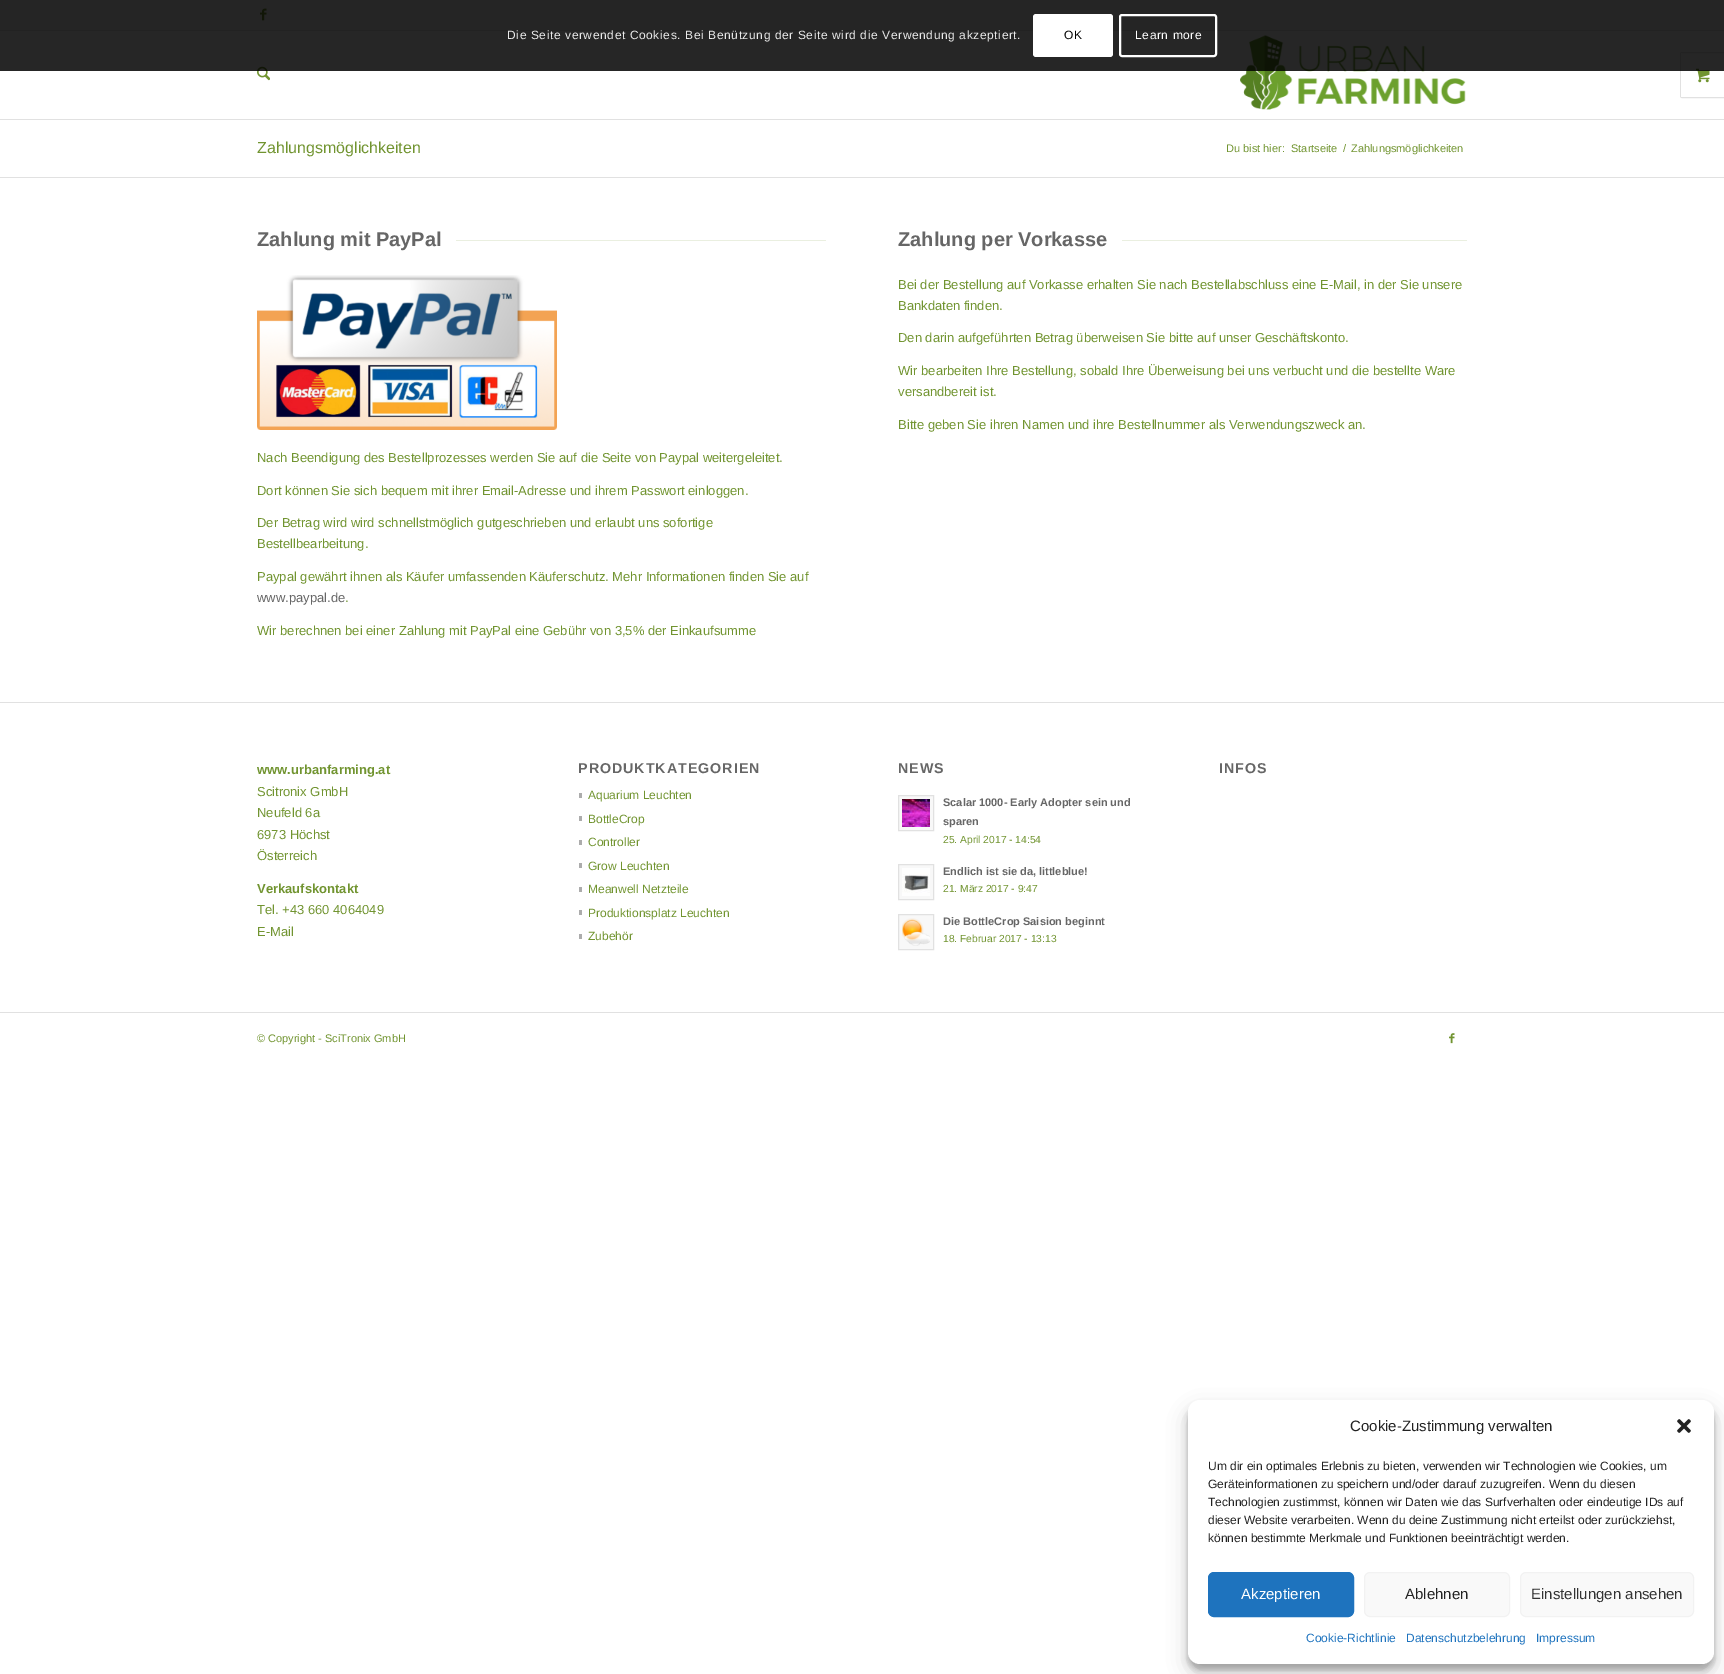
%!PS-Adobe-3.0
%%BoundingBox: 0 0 1724 1674
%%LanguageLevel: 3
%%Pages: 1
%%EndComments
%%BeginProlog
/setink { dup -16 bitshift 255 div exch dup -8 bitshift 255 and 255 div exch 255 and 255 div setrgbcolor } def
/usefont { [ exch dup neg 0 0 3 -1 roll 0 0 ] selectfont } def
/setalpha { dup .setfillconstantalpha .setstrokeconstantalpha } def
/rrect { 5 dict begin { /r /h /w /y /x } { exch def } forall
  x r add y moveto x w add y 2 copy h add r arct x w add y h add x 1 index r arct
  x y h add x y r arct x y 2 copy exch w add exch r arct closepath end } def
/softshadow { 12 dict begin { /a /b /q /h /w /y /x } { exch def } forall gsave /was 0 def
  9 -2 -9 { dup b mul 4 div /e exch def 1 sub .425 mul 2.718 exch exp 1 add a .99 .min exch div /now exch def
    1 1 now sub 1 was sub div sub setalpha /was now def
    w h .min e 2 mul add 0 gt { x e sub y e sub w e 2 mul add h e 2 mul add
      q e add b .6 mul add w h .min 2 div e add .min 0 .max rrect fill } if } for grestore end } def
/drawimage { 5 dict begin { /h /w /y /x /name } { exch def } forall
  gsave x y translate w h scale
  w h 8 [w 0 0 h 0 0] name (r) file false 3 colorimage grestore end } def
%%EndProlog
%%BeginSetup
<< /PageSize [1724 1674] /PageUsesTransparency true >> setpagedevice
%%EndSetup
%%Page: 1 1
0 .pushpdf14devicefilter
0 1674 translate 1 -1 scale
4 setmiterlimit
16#FFFFFF setink
0 0 1724 1674 rectfill
16#F8F8F8 setink
0 0 1724 30 rectfill
16#E1E1E1 setink
0 30 1724 1 rectfill
(img1.raw) 260 8 7 13 drawimage
(img2.raw) 257 66 13 15 drawimage
(img3.raw) 1240 35 226 75 drawimage
1680.5 52.5 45 45 1.5 rrect stroke
16#FFFFFF setink
1681 53 1 44 rectfill
(img4.raw) 1696 68 14 15 drawimage
0.85 setalpha
16#000000 setink
0 0 1724 71 rectfill
/LiberationSans-Regular 12 usefont
1 setalpha
16#E9E9E9 setink
507 39 moveto 0.6 0 (Die Seite verwendet Cookies. Bei Benützung der Seite wird die Verwendung akzeptiert.) ashow
16#FFFFFF setink
1033 14 80 43 3 rrect fill
16#000000 setink
1064 39 moveto 0.6 0 (OK) ashow
16#FFFFFF setink
2 setlinewidth
1120 15 96 41 2 rrect stroke
1135 39 moveto 0.6 0 (Learn more) ashow
16#E1E1E1 setink
0 119 1724 1 rectfill
/LiberationSans-Regular 16 usefont
16#719430 setink
257 153 moveto (Zahlungsmöglichkeiten) show
/LiberationSans-Regular 11 usefont
[
    [(Du bist hier:) 1226 152]
    [(Startseite) 1291 152]
    [(/) 1343 152]
    [(Zahlungsmöglichkeiten) 1351 152]
] { aload pop moveto show } forall
16#E1E1E1 setink
0 177 1724 1 rectfill
/LiberationSans-Bold 20 usefont
16#666666 setink
257 246 moveto (Zahlung mit PayPal) show
16#EAEFE0 setink
456 240 370 1 rectfill
(img5.raw) 257 275 300 155 drawimage
/LiberationSans-Regular 13 usefont
16#719430 setink
[
    [(Nach Beendigung des Bestellprozesses werden Sie auf die Seite von Paypal weitergeleitet.) 257 462]
    [(Dort können Sie sich bequem mit ihrer Email-Adresse und ihrem Passwort einloggen.) 257 495]
    [(Der Betrag wird wird schnellstmöglich gutgeschrieben und erlaubt uns sofortige) 257 527]
    [(Bestellbearbeitung.) 257 548]
    [(Paypal gewährt ihnen als Käufer umfassenden Käuferschutz. Mehr Informationen finden Sie auf) 257 581]
] { aload pop moveto show } forall
16#666666 setink
257 602 moveto (www.paypal.de) show
16#719430 setink
345 602 moveto (.) show
257 635 moveto (Wir berechnen bei einer Zahlung mit PayPal eine Gebühr von 3,5% der Einkaufsumme) show
/LiberationSans-Bold 20 usefont
16#666666 setink
898 246 moveto (Zahlung per Vorkasse) show
16#EAEFE0 setink
1122 240 345 1 rectfill
/LiberationSans-Regular 13 usefont
16#719430 setink
[
    [(Bei der Bestellung auf Vorkasse erhalten Sie nach Bestellabschluss eine E-Mail, in der Sie unsere) 898 289]
    [(Bankdaten finden.) 898 310]
    [(Den darin aufgeführten Betrag überweisen Sie bitte auf unser Geschäftskonto.) 898 342]
    [(Wir bearbeiten Ihre Bestellung, sobald Ihre Überweisung bei uns verbucht und die bestellte Ware) 898 375]
    [(versandbereit ist.) 898 396]
    [(Bitte geben Sie ihren Namen und ihre Bestellnummer als Verwendungszweck an.) 898 429]
] { aload pop moveto show } forall
16#E1E1E1 setink
0 702 1724 1 rectfill
/LiberationSans-Bold 13 usefont
16#719430 setink
257 774 moveto (www.urbanfarming.at) show
/LiberationSans-Regular 13 usefont
[
    [(Scitronix GmbH) 257 796]
    [(Neufeld 6a) 257 817]
    [(6973 Höchst) 257 839]
    [(Österreich) 257 860]
] { aload pop moveto show } forall
/LiberationSans-Bold 13 usefont
257 893 moveto (Verkaufskontakt) show
/LiberationSans-Regular 13 usefont
257 914 moveto (Tel. +43 660 4064049) show
257 936 moveto (E-Mail) show
/LiberationSans-Bold 14.25 usefont
16#666666 setink
578 773 moveto 1 0 (PRODUKTKATEGORIEN) ashow
/LiberationSans-Regular 12 usefont
16#719430 setink
588 799 moveto (Aquarium Leuchten) show
16#ACACAC setink
579 793 3 5 rectfill
16#719430 setink
588 823 moveto (BottleCrop) show
16#ACACAC setink
579 816 3 5 rectfill
16#719430 setink
588 846 moveto (Controller) show
16#ACACAC setink
579 840 3 5 rectfill
16#719430 setink
588 870 moveto (Grow Leuchten) show
16#ACACAC setink
579 863 3 5 rectfill
16#719430 setink
588 893 moveto (Meanwell Netzteile) show
16#ACACAC setink
579 887 3 5 rectfill
16#719430 setink
588 917 moveto (Produktionsplatz Leuchten) show
16#ACACAC setink
579 910 3 5 rectfill
16#719430 setink
588 940 moveto (Zubehör) show
16#ACACAC setink
579 934 3 5 rectfill
/LiberationSans-Bold 14.25 usefont
16#666666 setink
898 773 moveto 1 0 (NEWS) ashow
16#F8F8F8 setink
898.5 795.5 moveto 933.5 795.5 lineto 933.5 830.5 lineto 898.5 830.5 lineto closepath gsave fill grestore
16#E1E1E1 setink
1 setlinewidth
stroke
(img6.raw) 902 799 28 28 drawimage
/LiberationSans-Bold 11 usefont
16#666666 setink
943 806 moveto (Scalar 1000- Early Adopter sein und) show
943 825 moveto (sparen) show
/LiberationSans-Regular 10.25 usefont
16#719430 setink
943 843 moveto (25. April 2017 - 14:54) show
16#F8F8F8 setink
898.5 864.5 moveto 933.5 864.5 lineto 933.5 899.5 lineto 898.5 899.5 lineto closepath gsave fill grestore
16#E1E1E1 setink
stroke
(img7.raw) 902 868 28 28 drawimage
/LiberationSans-Bold 11 usefont
16#666666 setink
943 875 moveto (Endlich ist sie da, littleblue!) show
/LiberationSans-Regular 10.25 usefont
16#719430 setink
943 892 moveto (21. März 2017 - 9:47) show
16#F8F8F8 setink
898.5 914.5 moveto 933.5 914.5 lineto 933.5 949.5 lineto 898.5 949.5 lineto closepath gsave fill grestore
16#E1E1E1 setink
stroke
(img8.raw) 902 918 28 28 drawimage
/LiberationSans-Bold 11 usefont
16#666666 setink
943 925 moveto (Die BottleCrop Saision beginnt) show
/LiberationSans-Regular 10.25 usefont
16#719430 setink
943 942 moveto (18. Februar 2017 - 13:13) show
/LiberationSans-Bold 14.25 usefont
16#666666 setink
1219 773 moveto 1 0 (INFOS) ashow
16#E1E1E1 setink
0 1012 1724 1 rectfill
/LiberationSans-Regular 11 usefont
16#719430 setink
257 1042 moveto (© Copyright - SciTronix GmbH) show
(img9.raw) 1449 1033 6 11 drawimage
16#000000 setink
1188 1406 526 264 12 3 0.23 softshadow
1188 1410 526 264 12 10 0.19 softshadow
16#FFFFFF setink
1188 1400 526 264 12 rrect fill
/LiberationSans-Regular 15 usefont
16#222222 setink
1350 1431 moveto (Cookie-Zustimmung verwalten) show
(img10.raw) 1677 1419 14 14 drawimage
/LiberationSans-Regular 12 usefont
[
    [(Um dir ein optimales Erlebnis zu bieten, verwenden wir Technologien wie Cookies, um) 1208 1470]
    [(Geräteinformationen zu speichern und/oder darauf zuzugreifen. Wenn du diesen) 1208 1488]
    [(Technologien zustimmst, können wir Daten wie das Surfverhalten oder eindeutige IDs auf) 1208 1506]
    [(dieser Website verarbeiten. Wenn du deine Zustimmung nicht erteilst oder zurückziehst,) 1208 1524]
    [(können bestimmte Merkmale und Funktionen beeinträchtigt werden.) 1208 1542]
] { aload pop moveto show } forall
16#1E73BE setink
1208.5 1572.5 145 44 5.5 rrect gsave fill grestore
stroke
/LiberationSans-Regular 15 usefont
16#FFFFFF setink
1241 1599 moveto (Akzeptieren) show
16#F9F9F9 setink
1364.5 1572.5 145 44 5.5 rrect gsave fill grestore
16#F2F2F2 setink
stroke
16#222222 setink
1405 1599 moveto (Ablehnen) show
16#F9F9F9 setink
1520.5 1572.5 173 44 5.5 rrect gsave fill grestore
16#F2F2F2 setink
stroke
16#333333 setink
1531 1599 moveto (Einstellungen ansehen) show
/LiberationSans-Regular 12 usefont
16#1E73BE setink
[
    [(Cookie-Richtlinie) 1306 1642]
    [(Datenschutzbelehrung) 1406 1642]
    [(Impressum) 1536 1642]
] { aload pop moveto show } forall
.poppdf14devicefilter showpage
%%EOF
